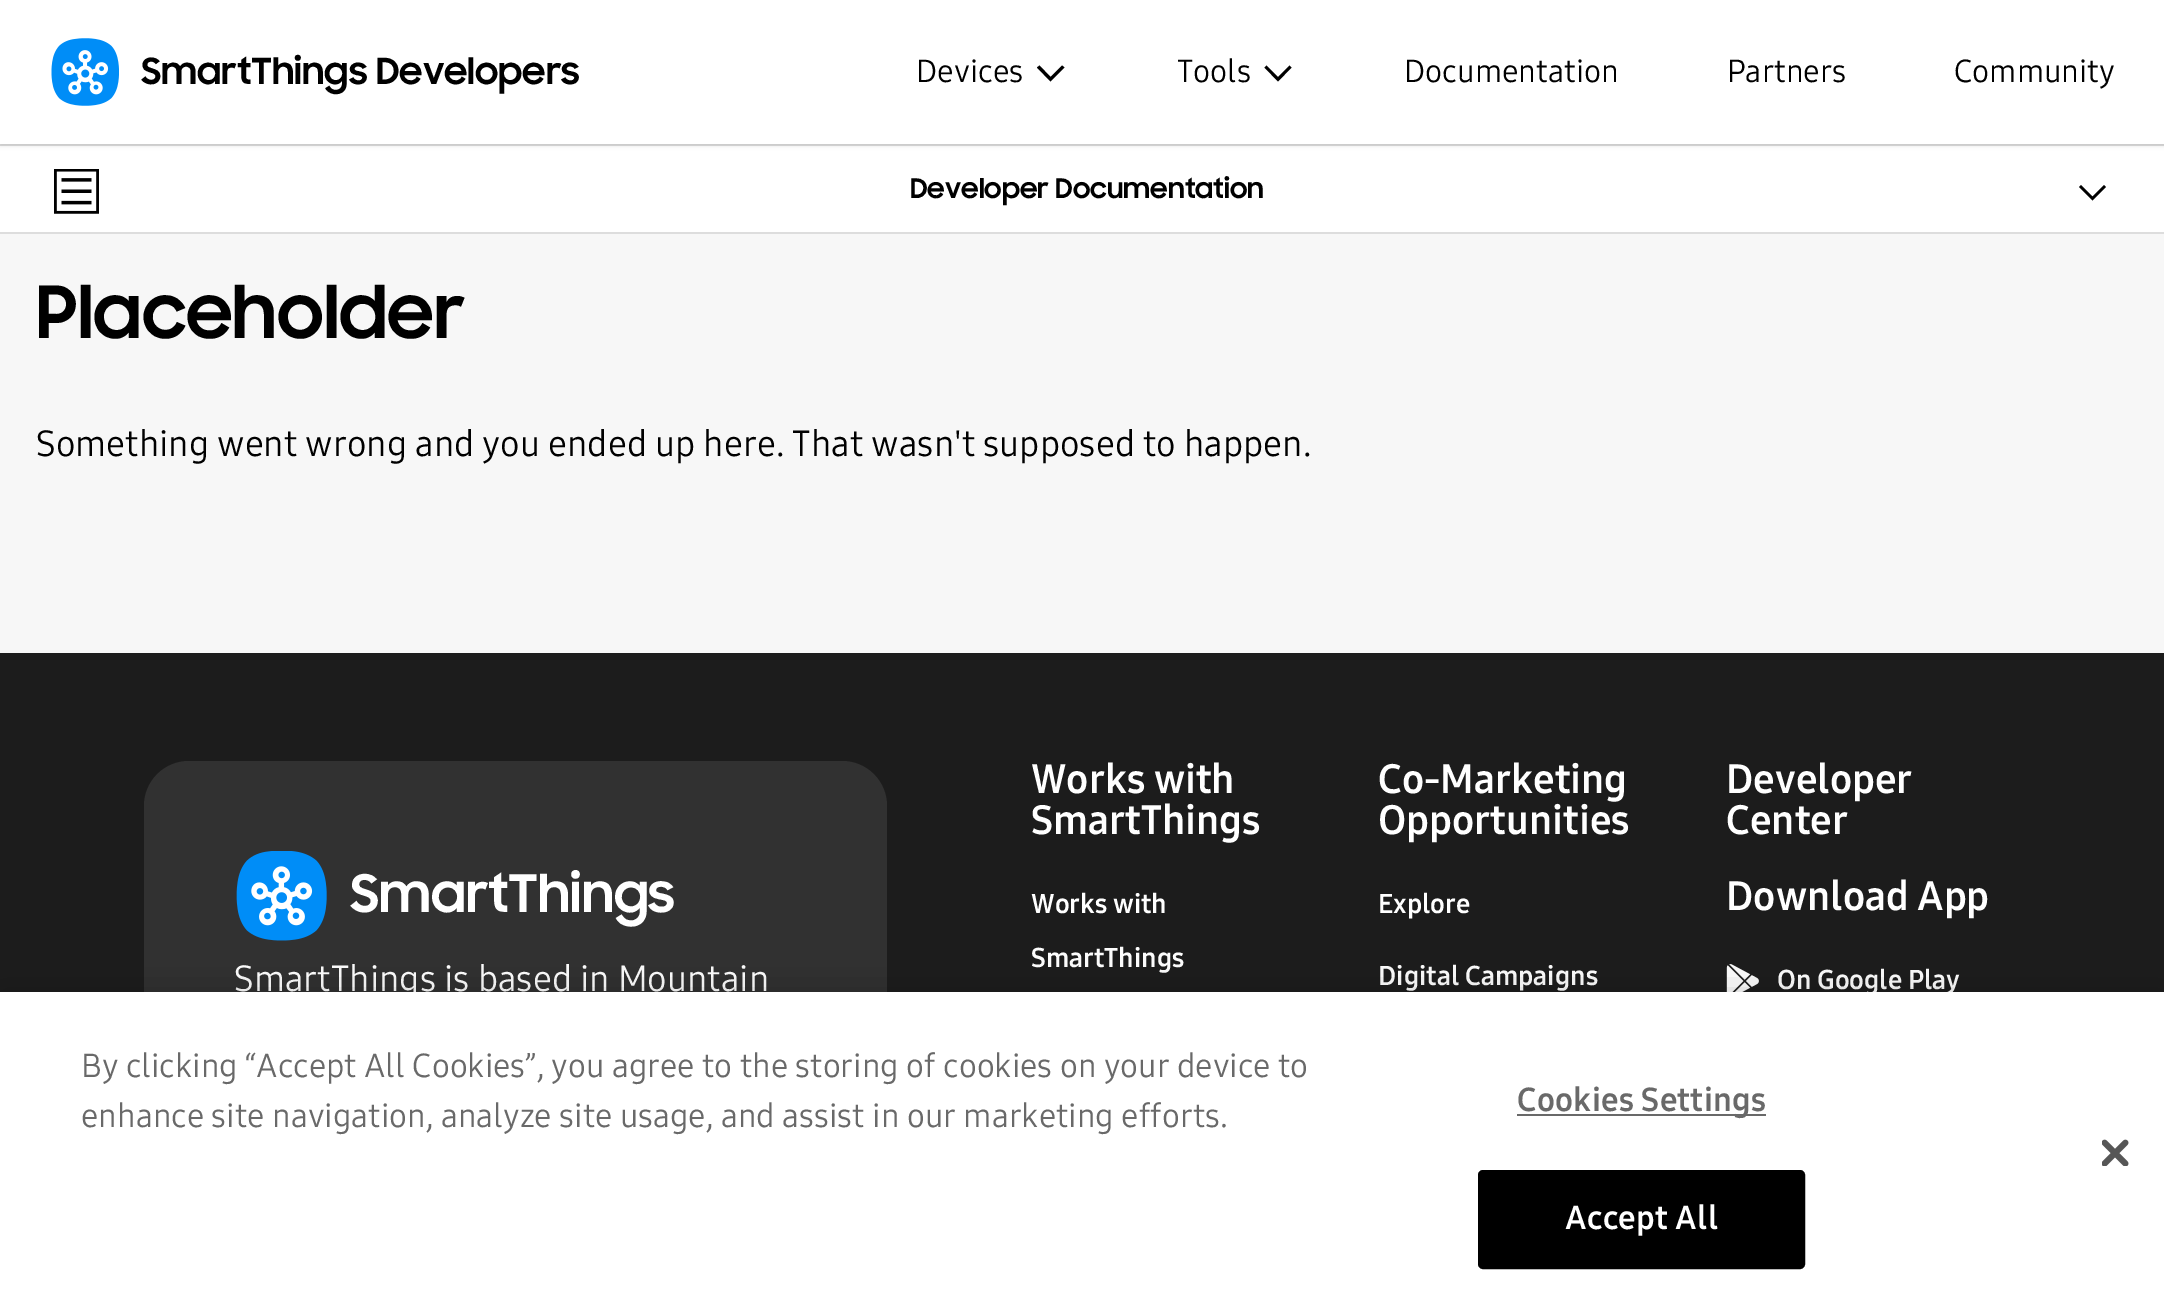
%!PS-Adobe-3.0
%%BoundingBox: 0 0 2164 1313
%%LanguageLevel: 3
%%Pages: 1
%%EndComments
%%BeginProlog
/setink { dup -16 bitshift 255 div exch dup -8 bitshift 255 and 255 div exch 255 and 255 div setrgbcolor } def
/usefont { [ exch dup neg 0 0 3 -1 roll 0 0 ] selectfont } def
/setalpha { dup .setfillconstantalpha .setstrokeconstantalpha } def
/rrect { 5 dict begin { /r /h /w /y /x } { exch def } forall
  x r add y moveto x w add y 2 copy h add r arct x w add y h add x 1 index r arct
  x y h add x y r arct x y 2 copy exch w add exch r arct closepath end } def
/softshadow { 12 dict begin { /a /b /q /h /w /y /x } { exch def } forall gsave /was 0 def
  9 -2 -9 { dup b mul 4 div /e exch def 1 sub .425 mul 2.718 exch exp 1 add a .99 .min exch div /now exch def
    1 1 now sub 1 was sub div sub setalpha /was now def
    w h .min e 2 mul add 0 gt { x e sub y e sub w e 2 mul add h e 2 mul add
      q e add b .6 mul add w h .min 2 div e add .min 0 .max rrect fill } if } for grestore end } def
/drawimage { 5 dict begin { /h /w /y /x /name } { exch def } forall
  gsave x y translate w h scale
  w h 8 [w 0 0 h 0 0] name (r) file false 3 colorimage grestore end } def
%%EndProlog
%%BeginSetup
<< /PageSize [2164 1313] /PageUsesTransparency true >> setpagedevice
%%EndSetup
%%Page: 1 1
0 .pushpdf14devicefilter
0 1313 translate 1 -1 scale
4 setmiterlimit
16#F7F7F7 setink
0 0 2164 1313 rectfill
16#DDDDDD setink
0 144 2164 2 rectfill
16#FFFFFF setink
0 146 2164 86 rectfill
16#000000 setink
0 2 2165 144 0 2 0.1 softshadow
16#FFFFFF setink
0 0 2164 144 rectfill
(img1.raw) 51 38 68 68 drawimage
/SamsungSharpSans-Bold 36 usefont
16#000000 setink
141 84 moveto (SmartThings Developers) show
/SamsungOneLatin-Regular 31.5 usefont
916 82 moveto (Devices) show
1050.5 81.5 moveto 1037 67.5 lineto 1039.5 65.5 lineto 1050.5 77 lineto 1062 65.5 lineto 1064.5 67.5 lineto closepath fill
1177 82 moveto (Tools) show
1278 81.5 moveto 1264.5 67.5 lineto 1266.5 65.5 lineto 1278 77 lineto 1289.5 65.5 lineto 1291.5 67.5 lineto closepath fill
[
    [(Documentation) 1404 82]
    [(Partners) 1727 82]
    [(Community) 1954 82]
] { aload pop moveto show } forall
16#DDDDDD setink
0 232 2164 2 rectfill
(img2.raw) 54 169 45 45 drawimage
/SamsungSharpSans-Bold 27 usefont
16#000000 setink
910 198 moveto (Developer Documentation) show
2092.5 200.5 moveto 2079 187 lineto 2081 185 lineto 2092.5 196.5 lineto 2104 185 lineto 2106 187 lineto closepath fill
/SamsungSharpSans-Bold 72 usefont
36 338 moveto (Placeholder) show
/SamsungOneLatin-Regular 36 usefont
36 456 moveto (Something went wrong and you ended up here. That wasn't supposed to happen.) show
16#1C1C1C setink
0 653 2164 339 rectfill
16#313131 setink
144 761 743 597 45 rrect fill
(img3.raw) 236 851 91 90 drawimage
/SamsungSharpSans-Bold 51.75 usefont
16#FFFFFF setink
350 912 moveto (SmartThings) show
/SamsungOneLatin-Regular 36 usefont
234 991 moveto (SmartThings is based in Mountain) show
/SamsungOneLatin-Bold 40.5 usefont
1031 793 moveto (Works with) show
1031 834 moveto (SmartThings) show
/SamsungOneLatin-Bold 27 usefont
1031 913 moveto (Works with) show
1031 967 moveto (SmartThings) show
/SamsungOneLatin-Bold 40.5 usefont
1378 793 moveto (Co-Marketing) show
1378 834 moveto (Opportunities) show
/SamsungOneLatin-Bold 27 usefont
1378 913 moveto (Explore) show
1378 985 moveto (Digital Campaigns) show
/SamsungOneLatin-Bold 40.5 usefont
[
    [(Developer) 1726 793]
    [(Center) 1726 834]
    [(Download App) 1726 910]
] { aload pop moveto show } forall
(img4.raw) 1726 964 33 28 drawimage
/SamsungOneLatin-Bold 27 usefont
1777 989 moveto (On Google Play) show
16#000000 setink
0 992 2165 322 0 20 0.2 softshadow
16#FFFFFF setink
0 992 2164 321 rectfill
/SamsungOneLatin-Regular 32.95 usefont
16#696969 setink
81 1077 moveto (By clicking “Accept All Cookies”, you agree to the storing of cookies on your device to) show
81 1127 moveto (enhance site navigation, analyze site usage, and assist in our marketing efforts.) show
1517 1114 249 2 rectfill
/SamsungOneLatin-Bold 32.95 usefont
1517 1111 moveto 0.3 0 (Cookies Settings) ashow
16#000000 setink
1479 1171 325 97 4 rrect gsave fill grestore
2 setlinewidth
stroke
16#FFFFFF setink
1565 1229 moveto 0.3 0 (Accept All) ashow
(img5.raw) 2102 1139 27 27 drawimage
.poppdf14devicefilter showpage
%%EOF
